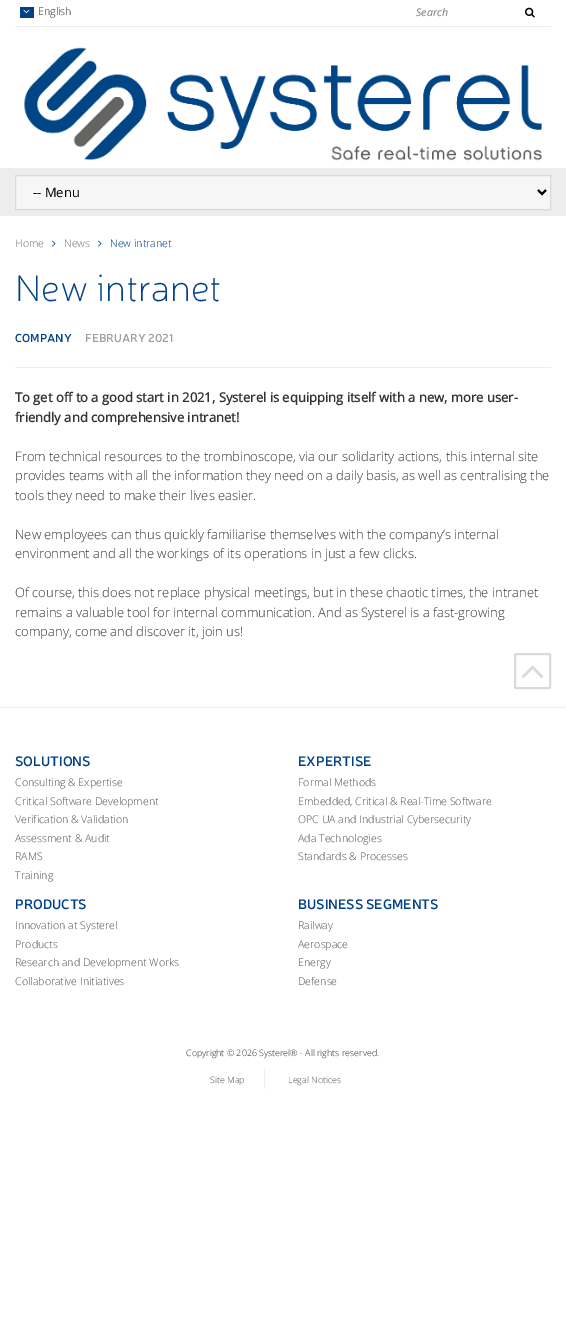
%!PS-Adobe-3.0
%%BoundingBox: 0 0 566 1317
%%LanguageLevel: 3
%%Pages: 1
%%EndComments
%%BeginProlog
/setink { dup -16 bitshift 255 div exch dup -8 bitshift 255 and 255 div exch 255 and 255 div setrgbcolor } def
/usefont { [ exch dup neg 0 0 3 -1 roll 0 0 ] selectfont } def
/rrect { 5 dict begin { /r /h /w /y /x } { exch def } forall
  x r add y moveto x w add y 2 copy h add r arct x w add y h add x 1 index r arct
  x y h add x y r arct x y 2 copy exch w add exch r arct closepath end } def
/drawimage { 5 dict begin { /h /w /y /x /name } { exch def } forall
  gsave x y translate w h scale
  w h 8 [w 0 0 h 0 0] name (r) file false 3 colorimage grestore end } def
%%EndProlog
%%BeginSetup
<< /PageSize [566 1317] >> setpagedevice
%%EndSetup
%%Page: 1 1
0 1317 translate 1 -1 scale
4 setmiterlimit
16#FFFFFF setink
0 0 566 1317 rectfill
16#EDEDEE setink
15 26 536 1 rectfill
16#004187 setink
20 7 14 11 rectfill
(img1.raw) 23 9 7 5 drawimage
/OpenSans-Light 10.6 usefont
16#333333 setink
38 15 moveto (English) show
/OpenSans-Italic 10.6 usefont
16#777777 setink
416 16 moveto (Search) show
(img2.raw) 525 7 10 11 drawimage
(img3.raw) 24 47 518 114 drawimage
16#EDEDEE setink
0 168 566 48 rectfill
16#F6F6F7 setink
15.5 175.5 moveto 550.5 175.5 lineto 550.5 209.5 lineto 15.5 209.5 lineto closepath gsave fill grestore
16#DADADA setink
stroke
16#000000 setink
2 setlinewidth
538 190 moveto 542 194 lineto 546 190 lineto stroke
/OpenSans-Regular 13 usefont
33 197 moveto (-- Menu) show
/OpenSans-Light 10.6 usefont
16#777777 setink
15 247 moveto (Home) show
(img4.raw) 52 240 4 7 drawimage
64 247 moveto (News) show
(img4.raw) 98 240 4 7 drawimage
16#004187 setink
110 247 moveto (New intranet) show
/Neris-ExtraLight 37.5 usefont
15 301 moveto (New intranet) show
/Neris-SemiBold 11.5 usefont
15 342 moveto (COMPANY) show
16#9C9E9F setink
85 342 moveto (FEBRUARY 2021) show
16#EEEEEE setink
15 367 536 1 rectfill
/OpenSans-Bold 13 usefont
16#333333 setink
15 402 moveto (To get off to a good start in 2021, Systerel is equipping itself with a new, more user-) show
15 422 moveto (friendly and comprehensive intranet!) show
/OpenSans-Light 13 usefont
[
    [(From technical resources to the trombinoscope, via our solidarity actions, this internal site) 15 461]
    [(provides teams with all the information they need on a daily basis, as well as centralising the) 15 480]
    [(tools they need to make their lives easier.) 15 500]
    [(New employees can thus quickly familiarise themselves with the company’s internal) 15 539]
    [(environment and all the workings of its operations in just a few clicks.) 15 558]
    [(Of course, this does not replace physical meetings, but in these chaotic times, the intranet) 15 597]
    [(remains a valuable tool for internal communication. And as Systerel is a fast-growing) 15 617]
    [(company, come and discover it, join us!) 15 636]
] { aload pop moveto show } forall
16#DADADA setink
515 654 35 34 1 rrect stroke
(img5.raw) 521 665 23 13 drawimage
16#EDEDEE setink
0 707 566 1 rectfill
/Neris-SemiBold 13.75 usefont
16#004187 setink
15 766 moveto (SOLUTIONS) show
/OpenSans-Light 10.6 usefont
16#555555 setink
[
    [(Consulting & Expertise) 15 786]
    [(Critical Software Development) 15 805]
    [(Verification & Validation) 15 823]
    [(Assessment & Audit) 15 842]
    [(RAMS) 15 860]
    [(Training) 15 879]
] { aload pop moveto show } forall
/Neris-SemiBold 13.75 usefont
16#004187 setink
298 766 moveto (EXPERTISE) show
/OpenSans-Light 10.6 usefont
16#555555 setink
[
    [(Formal Methods) 298 786]
    [(Embedded, Critical & Real-Time Software) 298 805]
    [(OPC UA and Industrial Cybersecurity) 298 823]
    [(Ada Technologies) 298 842]
    [(Standards & Processes) 298 860]
] { aload pop moveto show } forall
/Neris-SemiBold 13.75 usefont
16#004187 setink
15 909 moveto (PRODUCTS) show
/OpenSans-Light 10.6 usefont
16#555555 setink
[
    [(Innovation at Systerel) 15 929]
    [(Products) 15 948]
    [(Research and Development Works) 15 966]
    [(Collaborative Initiatives) 15 985]
] { aload pop moveto show } forall
/Neris-SemiBold 13.75 usefont
16#004187 setink
298 909 moveto (BUSINESS SEGMENTS) show
/OpenSans-Light 10.6 usefont
16#555555 setink
[
    [(Railway) 298 929]
    [(Aerospace) 298 948]
    [(Energy) 298 966]
    [(Defense) 298 985]
] { aload pop moveto show } forall
/OpenSans-Light 8.9 usefont
16#333333 setink
186 1056 moveto (Copyright © 2026 Systerel® - All rights reserved.) show
16#EDEDEE setink
264 1069 1 20 rectfill
16#555555 setink
210 1083 moveto (Site Map) show
288 1083 moveto (Legal Notices) show
showpage
%%EOF
